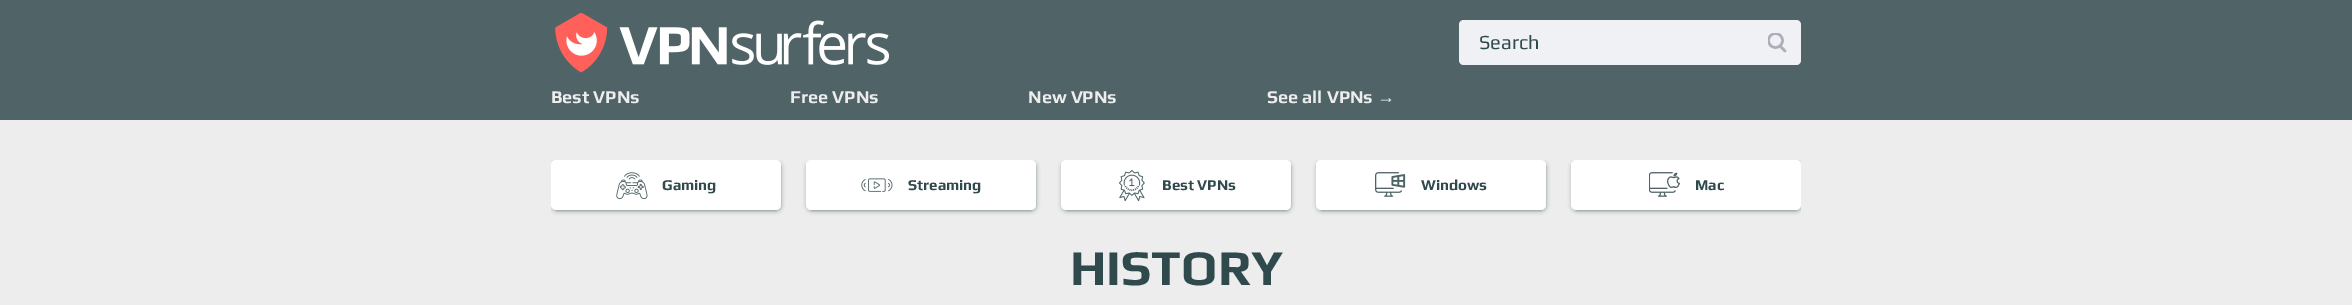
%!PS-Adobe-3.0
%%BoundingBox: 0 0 2352 305
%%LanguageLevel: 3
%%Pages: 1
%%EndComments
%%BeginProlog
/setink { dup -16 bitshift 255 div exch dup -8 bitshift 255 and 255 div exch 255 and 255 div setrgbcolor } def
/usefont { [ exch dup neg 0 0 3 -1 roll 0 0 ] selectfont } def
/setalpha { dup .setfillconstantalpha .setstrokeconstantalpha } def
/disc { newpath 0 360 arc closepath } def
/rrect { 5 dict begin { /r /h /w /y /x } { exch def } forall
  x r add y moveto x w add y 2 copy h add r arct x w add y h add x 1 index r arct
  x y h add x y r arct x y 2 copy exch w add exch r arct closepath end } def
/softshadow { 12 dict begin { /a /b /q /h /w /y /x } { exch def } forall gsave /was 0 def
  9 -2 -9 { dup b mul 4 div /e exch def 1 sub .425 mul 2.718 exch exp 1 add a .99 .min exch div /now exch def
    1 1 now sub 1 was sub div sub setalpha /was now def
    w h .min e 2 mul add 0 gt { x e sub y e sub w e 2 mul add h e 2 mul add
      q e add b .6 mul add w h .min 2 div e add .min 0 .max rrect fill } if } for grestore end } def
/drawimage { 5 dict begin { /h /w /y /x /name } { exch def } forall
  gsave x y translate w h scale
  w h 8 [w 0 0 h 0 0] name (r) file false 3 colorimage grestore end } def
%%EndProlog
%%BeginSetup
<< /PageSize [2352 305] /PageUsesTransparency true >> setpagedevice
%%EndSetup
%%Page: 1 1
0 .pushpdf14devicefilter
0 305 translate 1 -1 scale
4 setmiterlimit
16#EDEDED setink
0 0 2352 305 rectfill
16#506467 setink
0 0 2352 120 rectfill
(img1.raw) 555 13 53 60 drawimage
(img2.raw) 619 20 270 45 drawimage
16#F0F1F5 setink
1464 20 moveto 1751 20 lineto 1751 65 lineto 1464 65 lineto 1461 65 1459 63 1459 60 curveto 1459 25 lineto 1459 22 1461 20 1464 20 curveto closepath fill
/Play-Regular 20 usefont
16#30494C setink
1479 49 moveto (Search) show
16#F0F1F5 setink
1751 20 moveto 1796 20 lineto 1799 20 1801 22 1801 25 curveto 1801 60 lineto 1801 63 1799 65 1796 65 curveto 1751 65 lineto closepath fill
gsave
1768 33 18 20 rectclip
16#ABB0BA setink
2.5 setlinewidth
1775.5 40.5 7 disc stroke
grestore
16#ABB0BA setink
2.5 setlinewidth
1 setlinecap
1780 46 moveto 1785 51 lineto stroke
/Play-Bold 18 usefont
16#EDEDED setink
[
    [(Best VPNs) 551 103]
    [(Free VPNs) 790 103]
    [(New VPNs) 1028 103]
    [(See all VPNs) 1267 103]
] { aload pop moveto show } forall
/LiberationSans-Bold 18 usefont
1377 103 moveto (→) show
gsave
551 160 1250 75 rectclip
16#506467 setink
553 163 227 47 4 2.5 1 softshadow
grestore
16#FFFFFF setink
551 160 230 50 5 rrect fill
(img3.raw) 616 172 32 28 drawimage
/Play-Bold 15 usefont
16#30494C setink
662 190 moveto (Gaming) show
gsave
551 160 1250 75 rectclip
16#506467 setink
808 163 227 47 4 2.5 1 softshadow
grestore
16#FFFFFF setink
806 160 230 50 5 rrect fill
(img4.raw) 861 178 32 14 drawimage
16#30494C setink
908 190 moveto (Streaming) show
gsave
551 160 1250 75 rectclip
16#506467 setink
1063 163 227 47 4 2.5 1 softshadow
grestore
16#FFFFFF setink
1061 160 230 50 5 rrect fill
(img5.raw) 1119 170 26 31 drawimage
16#30494C setink
1162 190 moveto (Best VPNs) show
gsave
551 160 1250 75 rectclip
16#506467 setink
1318 163 227 47 4 2.5 1 softshadow
grestore
16#FFFFFF setink
1316 160 230 50 5 rrect fill
(img6.raw) 1375 172 31 25 drawimage
16#30494C setink
1421 190 moveto (Windows) show
gsave
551 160 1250 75 rectclip
16#506467 setink
1573 163 227 47 4 2.5 1 softshadow
grestore
16#FFFFFF setink
1571 160 230 50 5 rrect fill
(img7.raw) 1649 172 31 25 drawimage
16#30494C setink
1695 190 moveto (Mac) show
/Play-Bold 50 usefont
1070 285 moveto (HISTORY) show
.poppdf14devicefilter showpage
%%EOF
